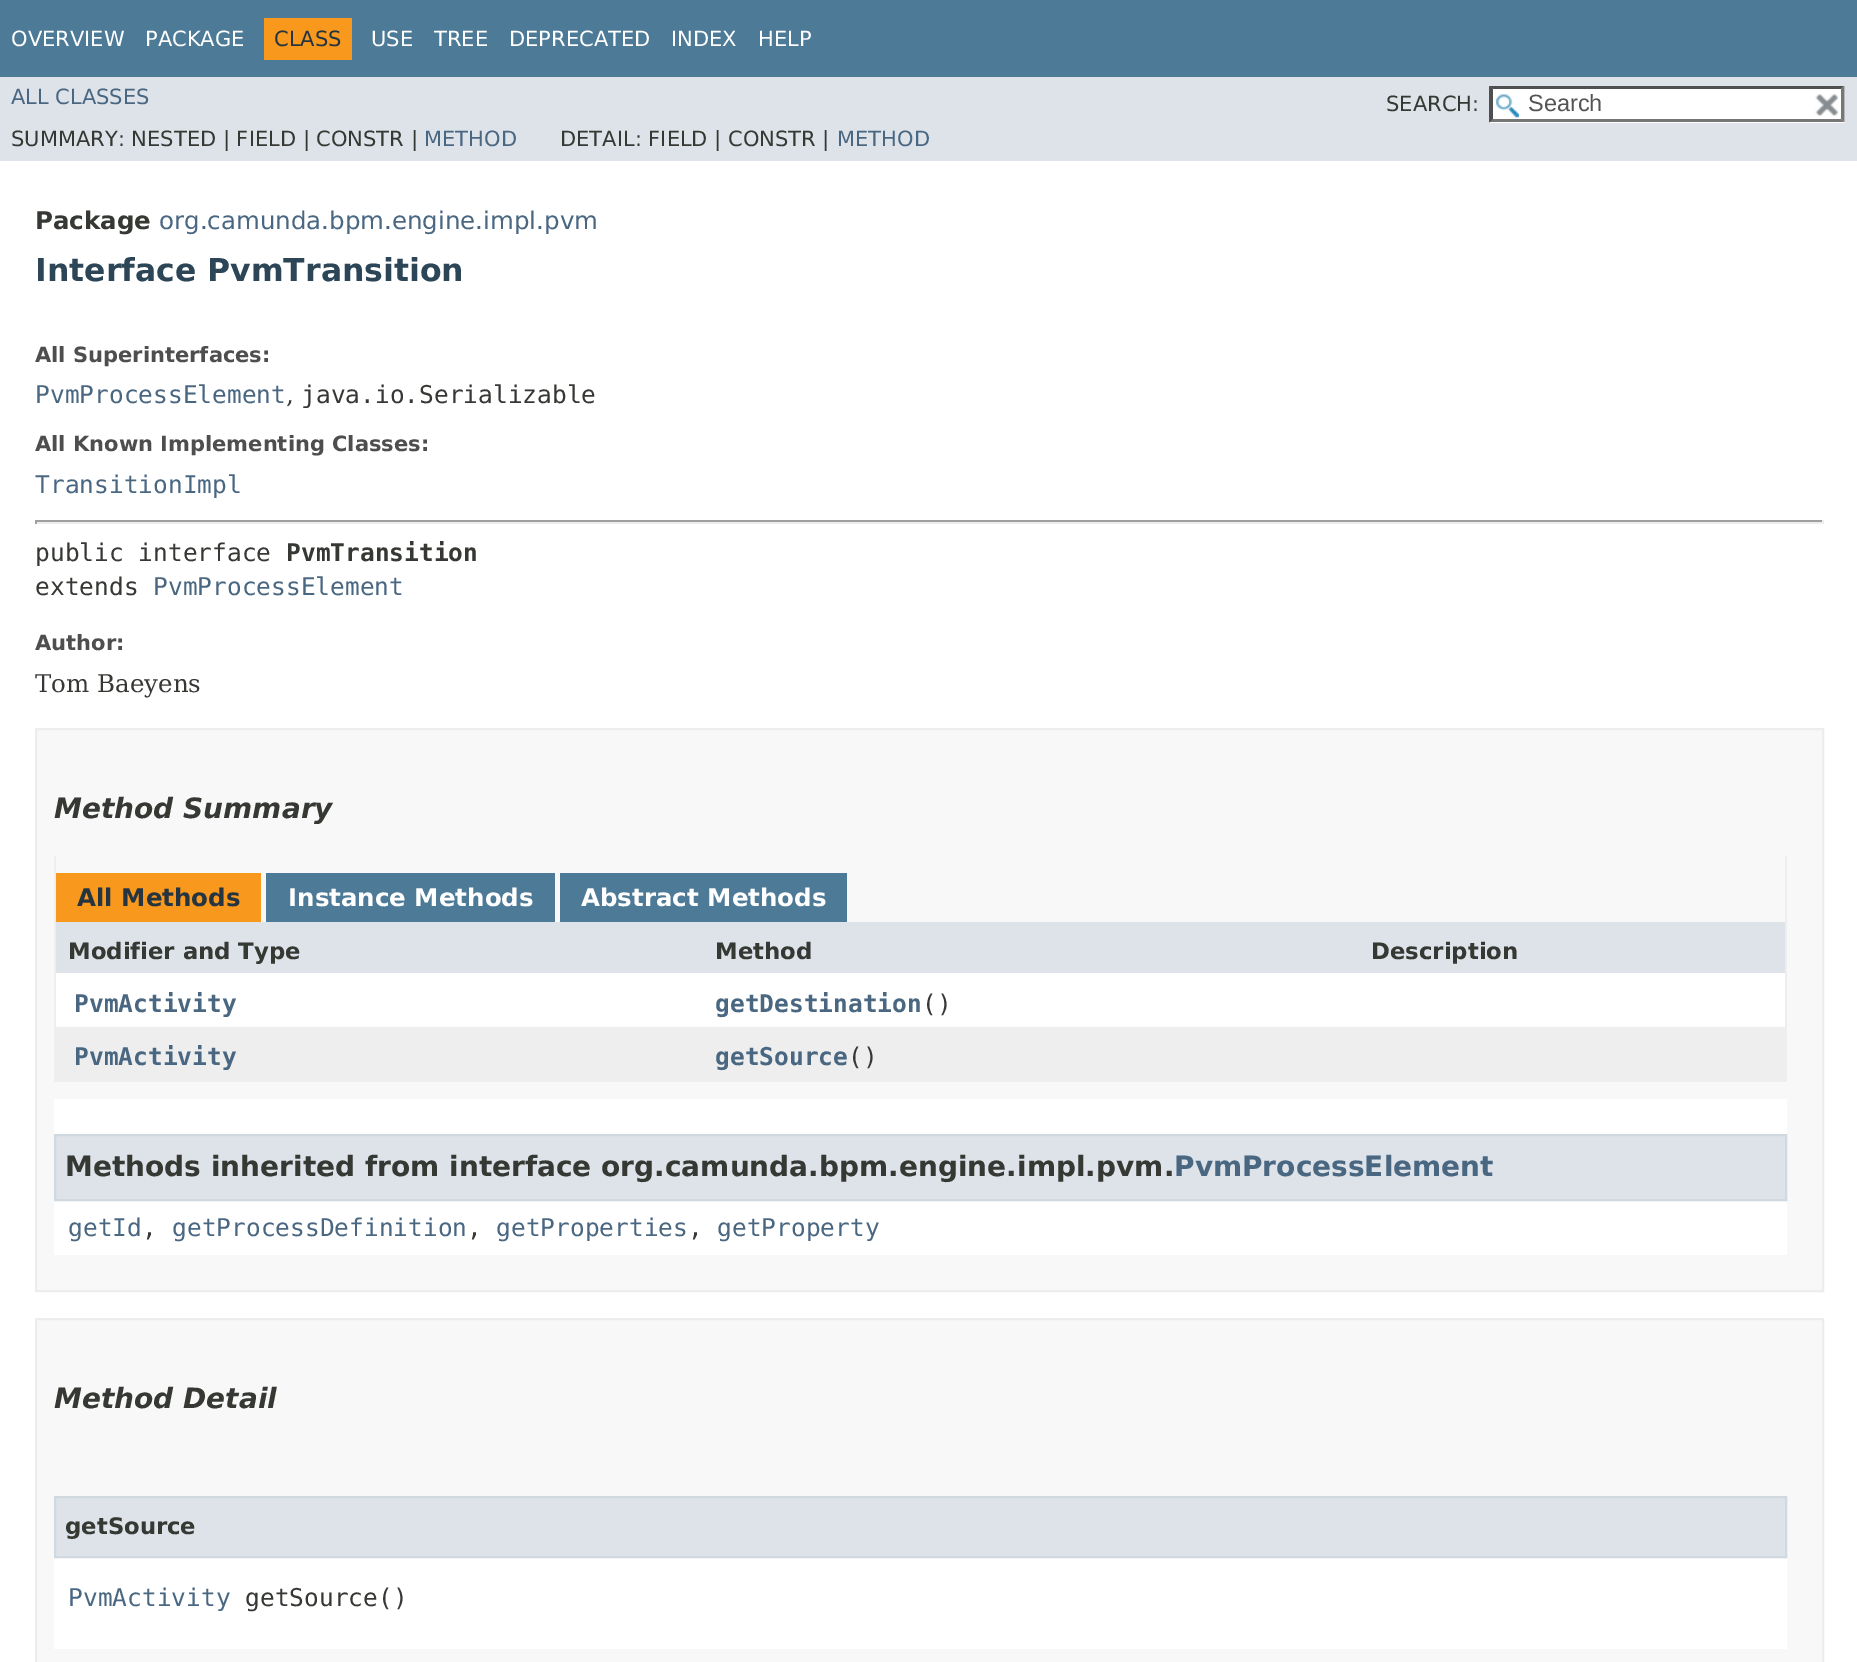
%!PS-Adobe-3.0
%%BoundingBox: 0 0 1857 1662
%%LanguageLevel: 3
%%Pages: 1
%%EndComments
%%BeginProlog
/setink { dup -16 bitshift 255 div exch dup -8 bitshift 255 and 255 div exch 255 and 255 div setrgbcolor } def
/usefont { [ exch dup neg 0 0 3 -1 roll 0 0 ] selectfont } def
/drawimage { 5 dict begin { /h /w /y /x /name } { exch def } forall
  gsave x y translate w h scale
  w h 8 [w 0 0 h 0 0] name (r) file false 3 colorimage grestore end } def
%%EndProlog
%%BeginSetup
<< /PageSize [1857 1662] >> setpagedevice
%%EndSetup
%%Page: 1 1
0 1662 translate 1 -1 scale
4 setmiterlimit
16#FFFFFF setink
0 0 1857 1662 rectfill
16#4D7A97 setink
0 0 1857 77 rectfill
/DejaVuSans-Regular 21 usefont
16#FFFFFF setink
11 46 moveto (OVERVIEW) show
145 46 moveto (PACKAGE) show
16#F8981D setink
264 18 88 42 rectfill
16#253441 setink
274 46 moveto (CLASS) show
16#FFFFFF setink
[
    [(USE) 371 46]
    [(TREE) 434 46]
    [(DEPRECATED) 509 46]
    [(INDEX) 671 46]
    [(HELP) 758 46]
] { aload pop moveto show } forall
16#DEE3E9 setink
0 77 1857 84 rectfill
16#4A6782 setink
11 104 moveto (ALL CLASSES) show
16#353833 setink
1386 111 moveto (SEARCH:) show
16#FFFFFF setink
1489 86 356 37 rectfill
(img1.raw) 1496 94 23 24 drawimage
16#4F4F4F setink
1489 86 moveto 1844 86 lineto 1841 89 lineto 1493 89 lineto closepath fill
16#767676 setink
1844.5 86 moveto 1844.5 122.5 lineto 1841 119 lineto 1841 89 lineto closepath fill
1844 122 moveto 1489 122 lineto 1493 119 lineto 1841 119 lineto closepath fill
16#4F4F4F setink
1489 122.5 moveto 1489 86 lineto 1493 89 lineto 1493 119 lineto closepath fill
/LiberationSans-Regular 23.5 usefont
16#545454 setink
1528 111 moveto (Search) show
(img2.raw) 1815 94 24 22 drawimage
/DejaVuSans-Regular 21 usefont
16#353833 setink
11 146 moveto (SUMMARY: NESTED | FIELD | CONSTR |) show
16#4A6782 setink
424 146 moveto (METHOD) show
16#353833 setink
560 146 moveto (DETAIL: FIELD | CONSTR |) show
16#4A6782 setink
837 146 moveto (METHOD) show
/DejaVuSans-Bold 24.5 usefont
16#353833 setink
35 229 moveto (Package) show
/DejaVuSans-Regular 24.5 usefont
16#4A6782 setink
159 229 moveto (org.camunda.bpm.engine.impl.pvm) show
/DejaVuSans-Bold 31.5 usefont
16#2C4557 setink
35 281 moveto (Interface PvmTransition) show
/DejaVuSans-Bold 21 usefont
16#4E4E4E setink
35 362 moveto (All Superinterfaces:) show
/DejaVuSansMono-Regular 24.5 usefont
16#4A6782 setink
35 403 moveto (PvmProcessElement) show
/DejaVuSerif-Regular 24.5 usefont
16#353833 setink
286 403 moveto (,) show
/DejaVuSansMono-Regular 24.5 usefont
301 403 moveto (java.io.Serializable) show
/DejaVuSans-Bold 21 usefont
16#4E4E4E setink
35 451 moveto (All Known Implementing Classes:) show
/DejaVuSansMono-Regular 24.5 usefont
16#4A6782 setink
35 493 moveto (TransitionImpl) show
[
    [35 520 1789 2 16#9F9F9F]
    [1822 520 2 4 16#EEEEEE]
    [35 522 1789 2 16#EEEEEE]
    [35 520 2 4 16#9F9F9F]
] { aload pop setink rectfill } forall
16#353833 setink
35 561 moveto (public interface) show
/DejaVuSansMono-Bold 24.5 usefont
286 561 moveto (PvmTransition) show
/DejaVuSansMono-Regular 24.5 usefont
35 595 moveto (extends) show
16#4A6782 setink
153 595 moveto (PvmProcessElement) show
/DejaVuSans-Bold 21 usefont
16#4E4E4E setink
35 650 moveto (Author:) show
/DejaVuSerif-Regular 24.5 usefont
16#353833 setink
35 692 moveto (Tom Baeyens) show
16#F8F8F8 setink
36 729 moveto 1823 729 lineto 1823 1291 lineto 36 1291 lineto closepath gsave fill grestore
16#EDEDED setink
2 setlinewidth
stroke
/DejaVuSans-BoldItalic 28 usefont
16#353833 setink
54 818 moveto (Method Summary) show
[
    [1785 856 2 226 16#EEEEEE]
    [54 1080 1733 2 16#EEEEEE]
    [54 856 2 226 16#EEEEEE]
    [56 873 205 49 16#F8981D]
] { aload pop setink rectfill } forall
/DejaVuSans-Bold 24.5 usefont
16#253441 setink
77 906 moveto (All Methods) show
16#4D7A97 setink
266 873 289 49 rectfill
16#FFFFFF setink
288 906 moveto (Instance Methods) show
16#4D7A97 setink
560 873 287 49 rectfill
16#FFFFFF setink
581 906 moveto (Abstract Methods) show
16#DEE3E9 setink
56 922 1729 51 rectfill
/DejaVuSans-Bold 22.75 usefont
16#353833 setink
[
    [(Modifier and Type) 68 959]
    [(Method) 715 959]
    [(Description) 1371 959]
] { aload pop moveto show } forall
16#FFFFFF setink
56 973 1729 54 rectfill
/DejaVuSansMono-Bold 24.5 usefont
16#4A6782 setink
74 1012 moveto (PvmActivity) show
715 1012 moveto (getDestination) show
/DejaVuSansMono-Regular 24.5 usefont
16#353833 setink
922 1012 moveto (\(\)) show
16#EEEEEF setink
56 1027 1729 53 rectfill
/DejaVuSansMono-Bold 24.5 usefont
16#4A6782 setink
74 1065 moveto (PvmActivity) show
715 1065 moveto (getSource) show
/DejaVuSansMono-Regular 24.5 usefont
16#353833 setink
848 1065 moveto (\(\)) show
16#FFFFFF setink
54 1099 1733 156 rectfill
16#DEE3E9 setink
55 1135 moveto 1786 1135 lineto 1786 1200 lineto 55 1200 lineto closepath gsave fill grestore
16#D0D9E0 setink
stroke
/DejaVuSans-Bold 28 usefont
16#353833 setink
65 1176 moveto (Methods inherited from interface org.camunda.bpm.engine.impl.pvm.) show
16#4A6782 setink
1174 1176 moveto (PvmProcessElement) show
/DejaVuSansMono-Regular 24.5 usefont
68 1236 moveto (getId) show
16#353833 setink
142 1236 moveto (,) show
16#4A6782 setink
172 1236 moveto (getProcessDefinition) show
16#353833 setink
467 1236 moveto (,) show
16#4A6782 setink
496 1236 moveto (getProperties) show
16#353833 setink
688 1236 moveto (,) show
16#4A6782 setink
717 1236 moveto (getProperty) show
16#F8F8F8 setink
36 1319 moveto 1823 1319 lineto 1823 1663 lineto 36 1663 lineto closepath gsave fill grestore
16#EDEDED setink
stroke
/DejaVuSans-BoldItalic 28 usefont
16#353833 setink
54 1408 moveto (Method Detail) show
16#FFFFFF setink
54 1558 1733 91 rectfill
16#DEE3E9 setink
55 1497 moveto 1786 1497 lineto 1786 1557 lineto 55 1557 lineto closepath gsave fill grestore
16#D0D9E0 setink
stroke
/DejaVuSans-Bold 22.75 usefont
16#353833 setink
65 1534 moveto (getSource) show
/DejaVuSansMono-Regular 24.5 usefont
16#4A6782 setink
68 1606 moveto (PvmActivity) show
16#353833 setink
245 1606 moveto (getSource\(\)) show
showpage
%%EOF
